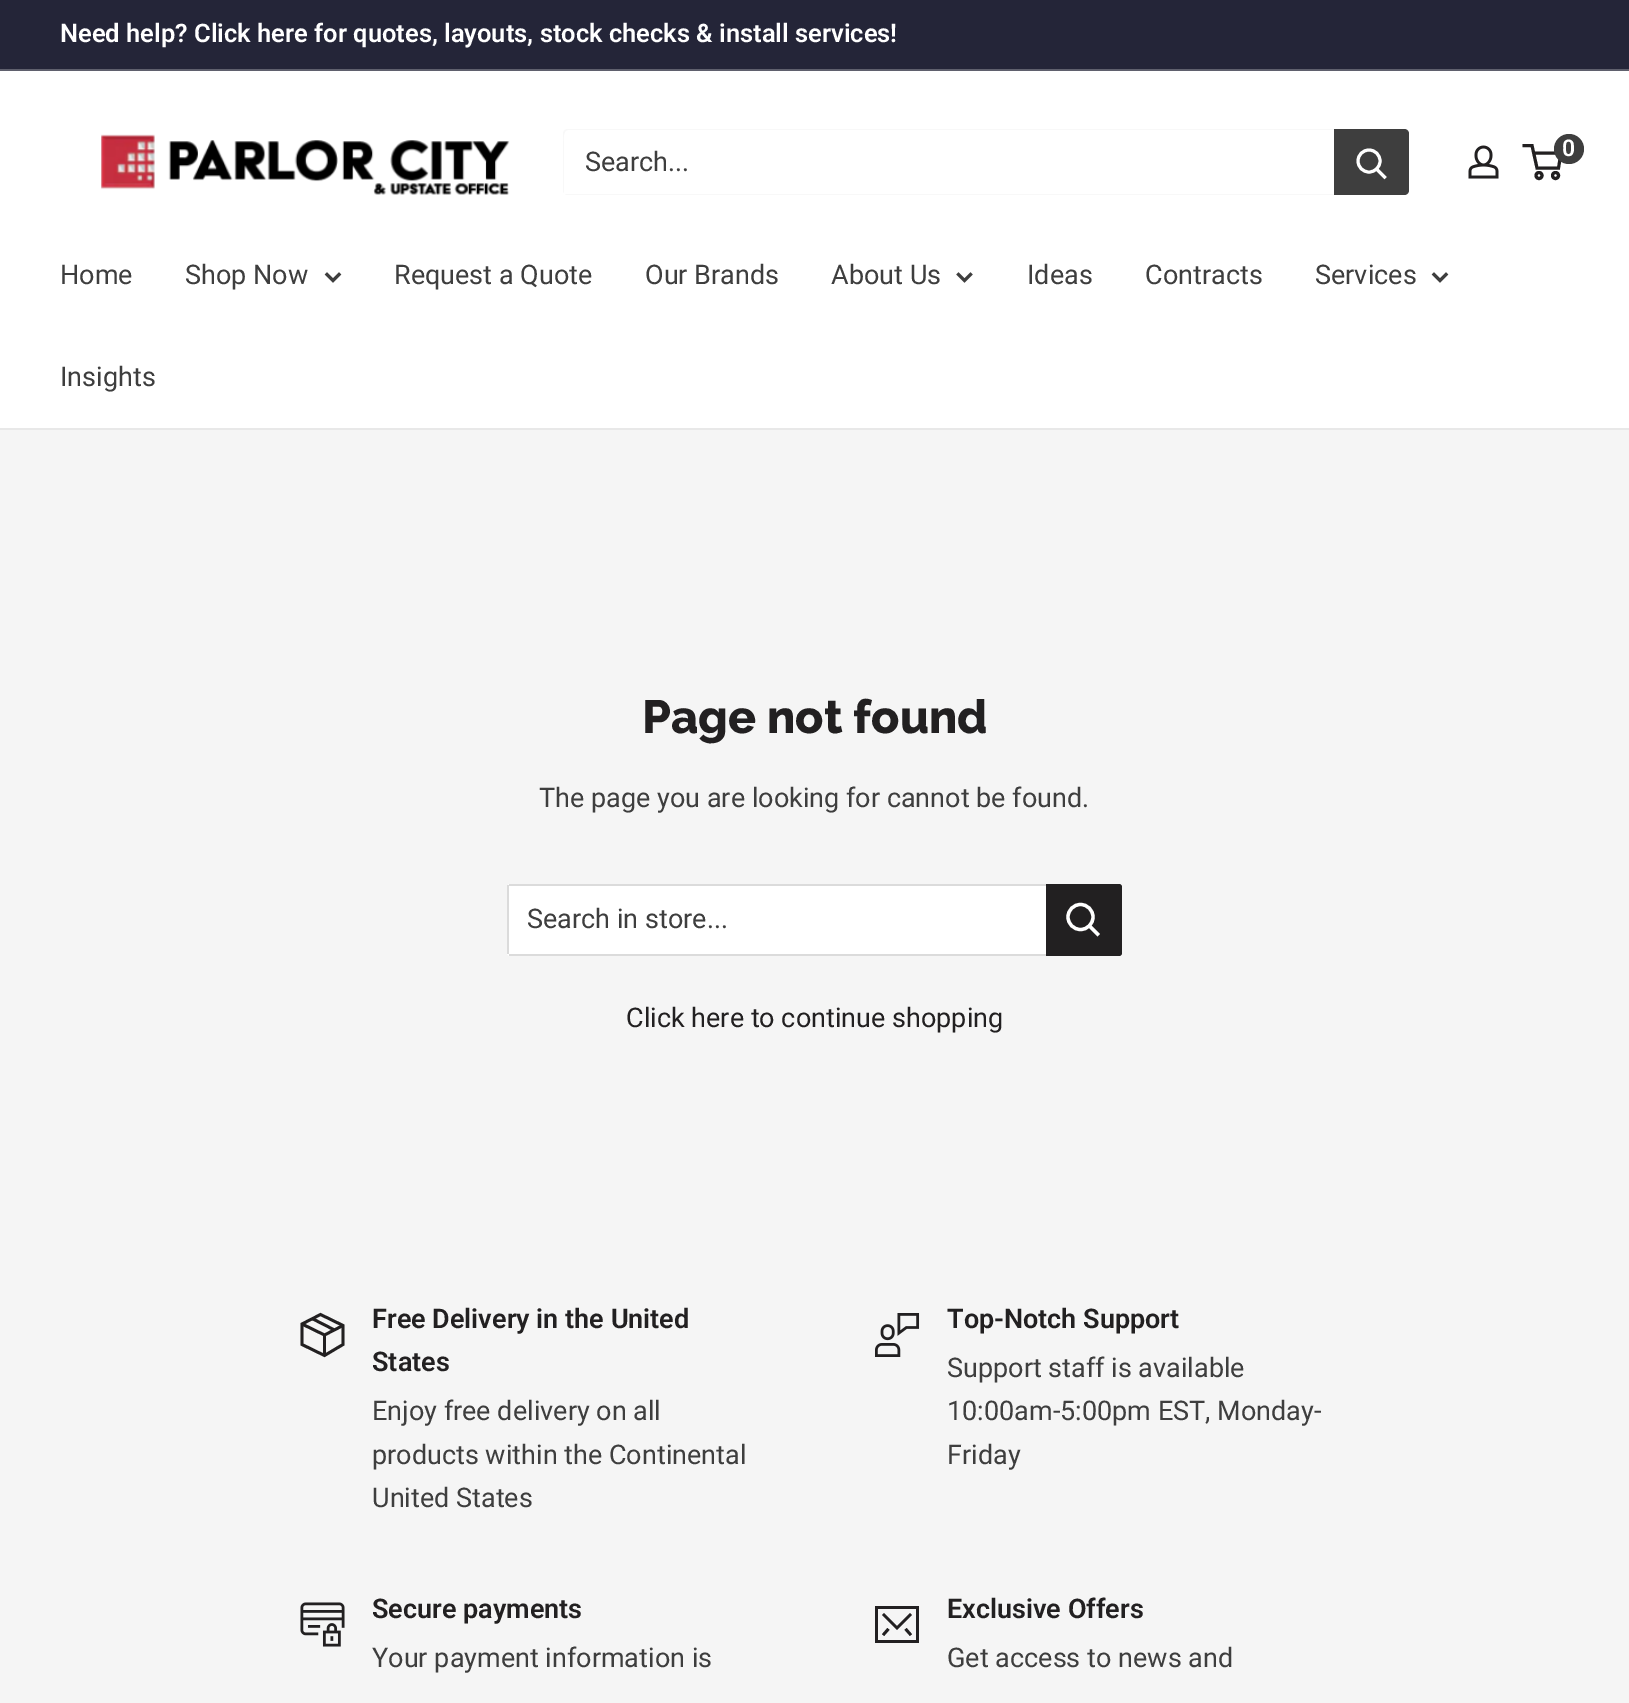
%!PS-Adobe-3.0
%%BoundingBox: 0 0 1629 1703
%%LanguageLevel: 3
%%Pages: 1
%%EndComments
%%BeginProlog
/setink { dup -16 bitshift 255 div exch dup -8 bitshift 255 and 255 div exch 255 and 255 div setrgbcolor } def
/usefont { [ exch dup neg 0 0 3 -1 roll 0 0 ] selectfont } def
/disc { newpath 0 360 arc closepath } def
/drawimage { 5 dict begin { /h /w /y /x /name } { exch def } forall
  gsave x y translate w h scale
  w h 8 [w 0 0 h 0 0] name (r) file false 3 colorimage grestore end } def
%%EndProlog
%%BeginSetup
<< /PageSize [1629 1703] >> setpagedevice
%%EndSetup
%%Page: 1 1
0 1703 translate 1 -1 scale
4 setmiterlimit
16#F5F5F5 setink
0 0 1629 1703 rectfill
16#242538 setink
0 0 1629 69 rectfill
16#5F606D setink
0 69 1629 2 rectfill
/Roboto-SemiBold 25.5 usefont
16#FFFFFF setink
60 42 moveto (Need help? Click here for quotes, layouts, stock checks & install services!) show
0 71 1629 357 rectfill
(img1.raw) 101 134 409 61 drawimage
(img2.raw) 1468 145 31 34 drawimage
16#222021 setink
3 setlinewidth
1539 175.5 3 disc stroke
1555.5 175.5 3 disc stroke
1533.5 153 moveto 1561 153 lineto 1558.5 168 lineto 1537 168 lineto 1532 145.5 lineto 1522.5 145.5 lineto stroke
16#3E3E3E setink
1569 149 15 disc fill
/Roboto-SemiBold 23 usefont
16#FFFFFF setink
1562 156 moveto (0) show
16#F8F8F8 setink
565 194 moveto 566 195 567 195 568 195 curveto 1404 195 lineto 1407 195 1409 193 1409 190 curveto 1409 134 lineto 1409 132 1408 130 1406 129 curveto 1407 130 1407 131 1407 132 curveto 1407 189 lineto 1407 191 1405 194 1402 194 curveto closepath fill
568 130 moveto 1406 130 lineto 1408 131 lineto 1407 130 1406 129 1404 129 curveto 568 129 lineto 565 129 563 131 563 134 curveto 563 190 lineto 563 191 563 192 564 193 curveto 564 144 lineto 564 144 562 130 568 130 curveto closepath fill
/Roboto-Regular 27 usefont
16#3E3E3E setink
585 171 moveto (Search...) show
1334 129 moveto 1404 129 lineto 1407 129 1409 131 1409 134 curveto 1409 190 lineto 1409 193 1407 195 1404 195 curveto 1334 195 lineto closepath fill
16#FFFFFF setink
2 setlinecap
1384.5 177 moveto 1377 169.5 lineto stroke
0 setlinecap
1369 161 11 disc stroke
16#E8E8E8 setink
0 428 1629 2 rectfill
16#3E3E3E setink
60 284 moveto (Home) show
185 284 moveto (Shop Now) show
2 setlinecap
339 274.5 moveto 333 280.5 lineto 327 274.5 lineto stroke
[
    [(Request a Quote) 394 284]
    [(Our Brands) 645 284]
    [(About Us) 831 284]
] { aload pop moveto show } forall
970.5 274.5 moveto 964.5 280.5 lineto 958.5 274.5 lineto stroke
[
    [(Ideas) 1027 284]
    [(Contracts) 1145 284]
    [(Services) 1315 284]
] { aload pop moveto show } forall
1446 274.5 moveto 1440 280.5 lineto 1434 274.5 lineto stroke
60 386 moveto (Insights) show
/Raleway-ExtraBold 46.5 usefont
16#222021 setink
642 733 moveto (Page not found) show
/Roboto-Regular 27 usefont
16#3E3E3E setink
539 807 moveto (The page you are looking for cannot be found.) show
16#FFFFFF setink
510 884 moveto 1046 884 lineto 1046 956 lineto 510 956 lineto 508.5 956 507 954.5 507 953 curveto 507 887 lineto 507 885.5 508.5 884 510 884 curveto closepath fill
[
    [509 884 537 2 16#DBDBDB]
    [509 954 537 2 16#DBDBDB]
    [507 885 2 69 16#DBDBDB]
] { aload pop setink rectfill } forall
16#3E3E3E setink
527 928 moveto (Search in store...) show
16#222021 setink
1046 884 moveto 1119 884 lineto 1120.5 884 1122 885.5 1122 887 curveto 1122 953 lineto 1122 954.5 1120.5 956 1119 956 curveto 1046 956 lineto closepath fill
16#FFFFFF setink
3.3 setlinewidth
1097.5 934 moveto 1089.5 926 lineto stroke
0 setlinecap
1080.5 917 12.5 disc stroke
16#222021 setink
626 1027 moveto (Click here to continue shopping) show
2.8 setlinewidth
312 1318.5 moveto 334.5 1330 lineto 343 1325.5 moveto 324.5 1335 lineto 302 1324 lineto 324.5 1335 moveto 324.5 1355.5 lineto stroke
2 setlinecap
343 1325.5 moveto 343 1344.5 lineto 324.5 1355.5 lineto 302 1344.5 lineto 302 1324 lineto 320.5 1314.5 lineto closepath stroke
/Roboto-SemiBold 27 usefont
372 1328 moveto (Free Delivery in the United) show
372 1371 moveto (States) show
/Roboto-Regular 27 usefont
16#3E3E3E setink
[
    [(Enjoy free delivery on all) 372 1420]
    [(products within the Continental) 372 1464]
    [(United States) 372 1507]
] { aload pop moveto show } forall
(img3.raw) 875 1313 45 44 drawimage
/Roboto-SemiBold 27 usefont
16#222021 setink
947 1328 moveto (Top-Notch Support) show
/Roboto-Regular 27 usefont
16#3E3E3E setink
[
    [(Support staff is available) 947 1377]
    [(10:00am-5:00pm EST, Monday-) 947 1420]
    [(Friday) 947 1464]
] { aload pop moveto show } forall
(img4.raw) 300 1602 45 45 drawimage
/Roboto-SemiBold 27 usefont
16#222021 setink
372 1618 moveto (Secure payments) show
/Roboto-Regular 27 usefont
16#3E3E3E setink
372 1667 moveto (Your payment information is) show
16#222021 setink
910 1615 moveto 897 1628 lineto 884 1615 lineto 876.5 1607.5 moveto 917.5 1607.5 lineto 917.5 1641.5 lineto 876.5 1641.5 lineto closepath 887.5 1630 moveto 884 1634 lineto 906.5 1630 moveto 910 1634 lineto stroke
/Roboto-SemiBold 27 usefont
947 1618 moveto (Exclusive Offers) show
/Roboto-Regular 27 usefont
16#3E3E3E setink
947 1667 moveto (Get access to news and) show
showpage
%%EOF
